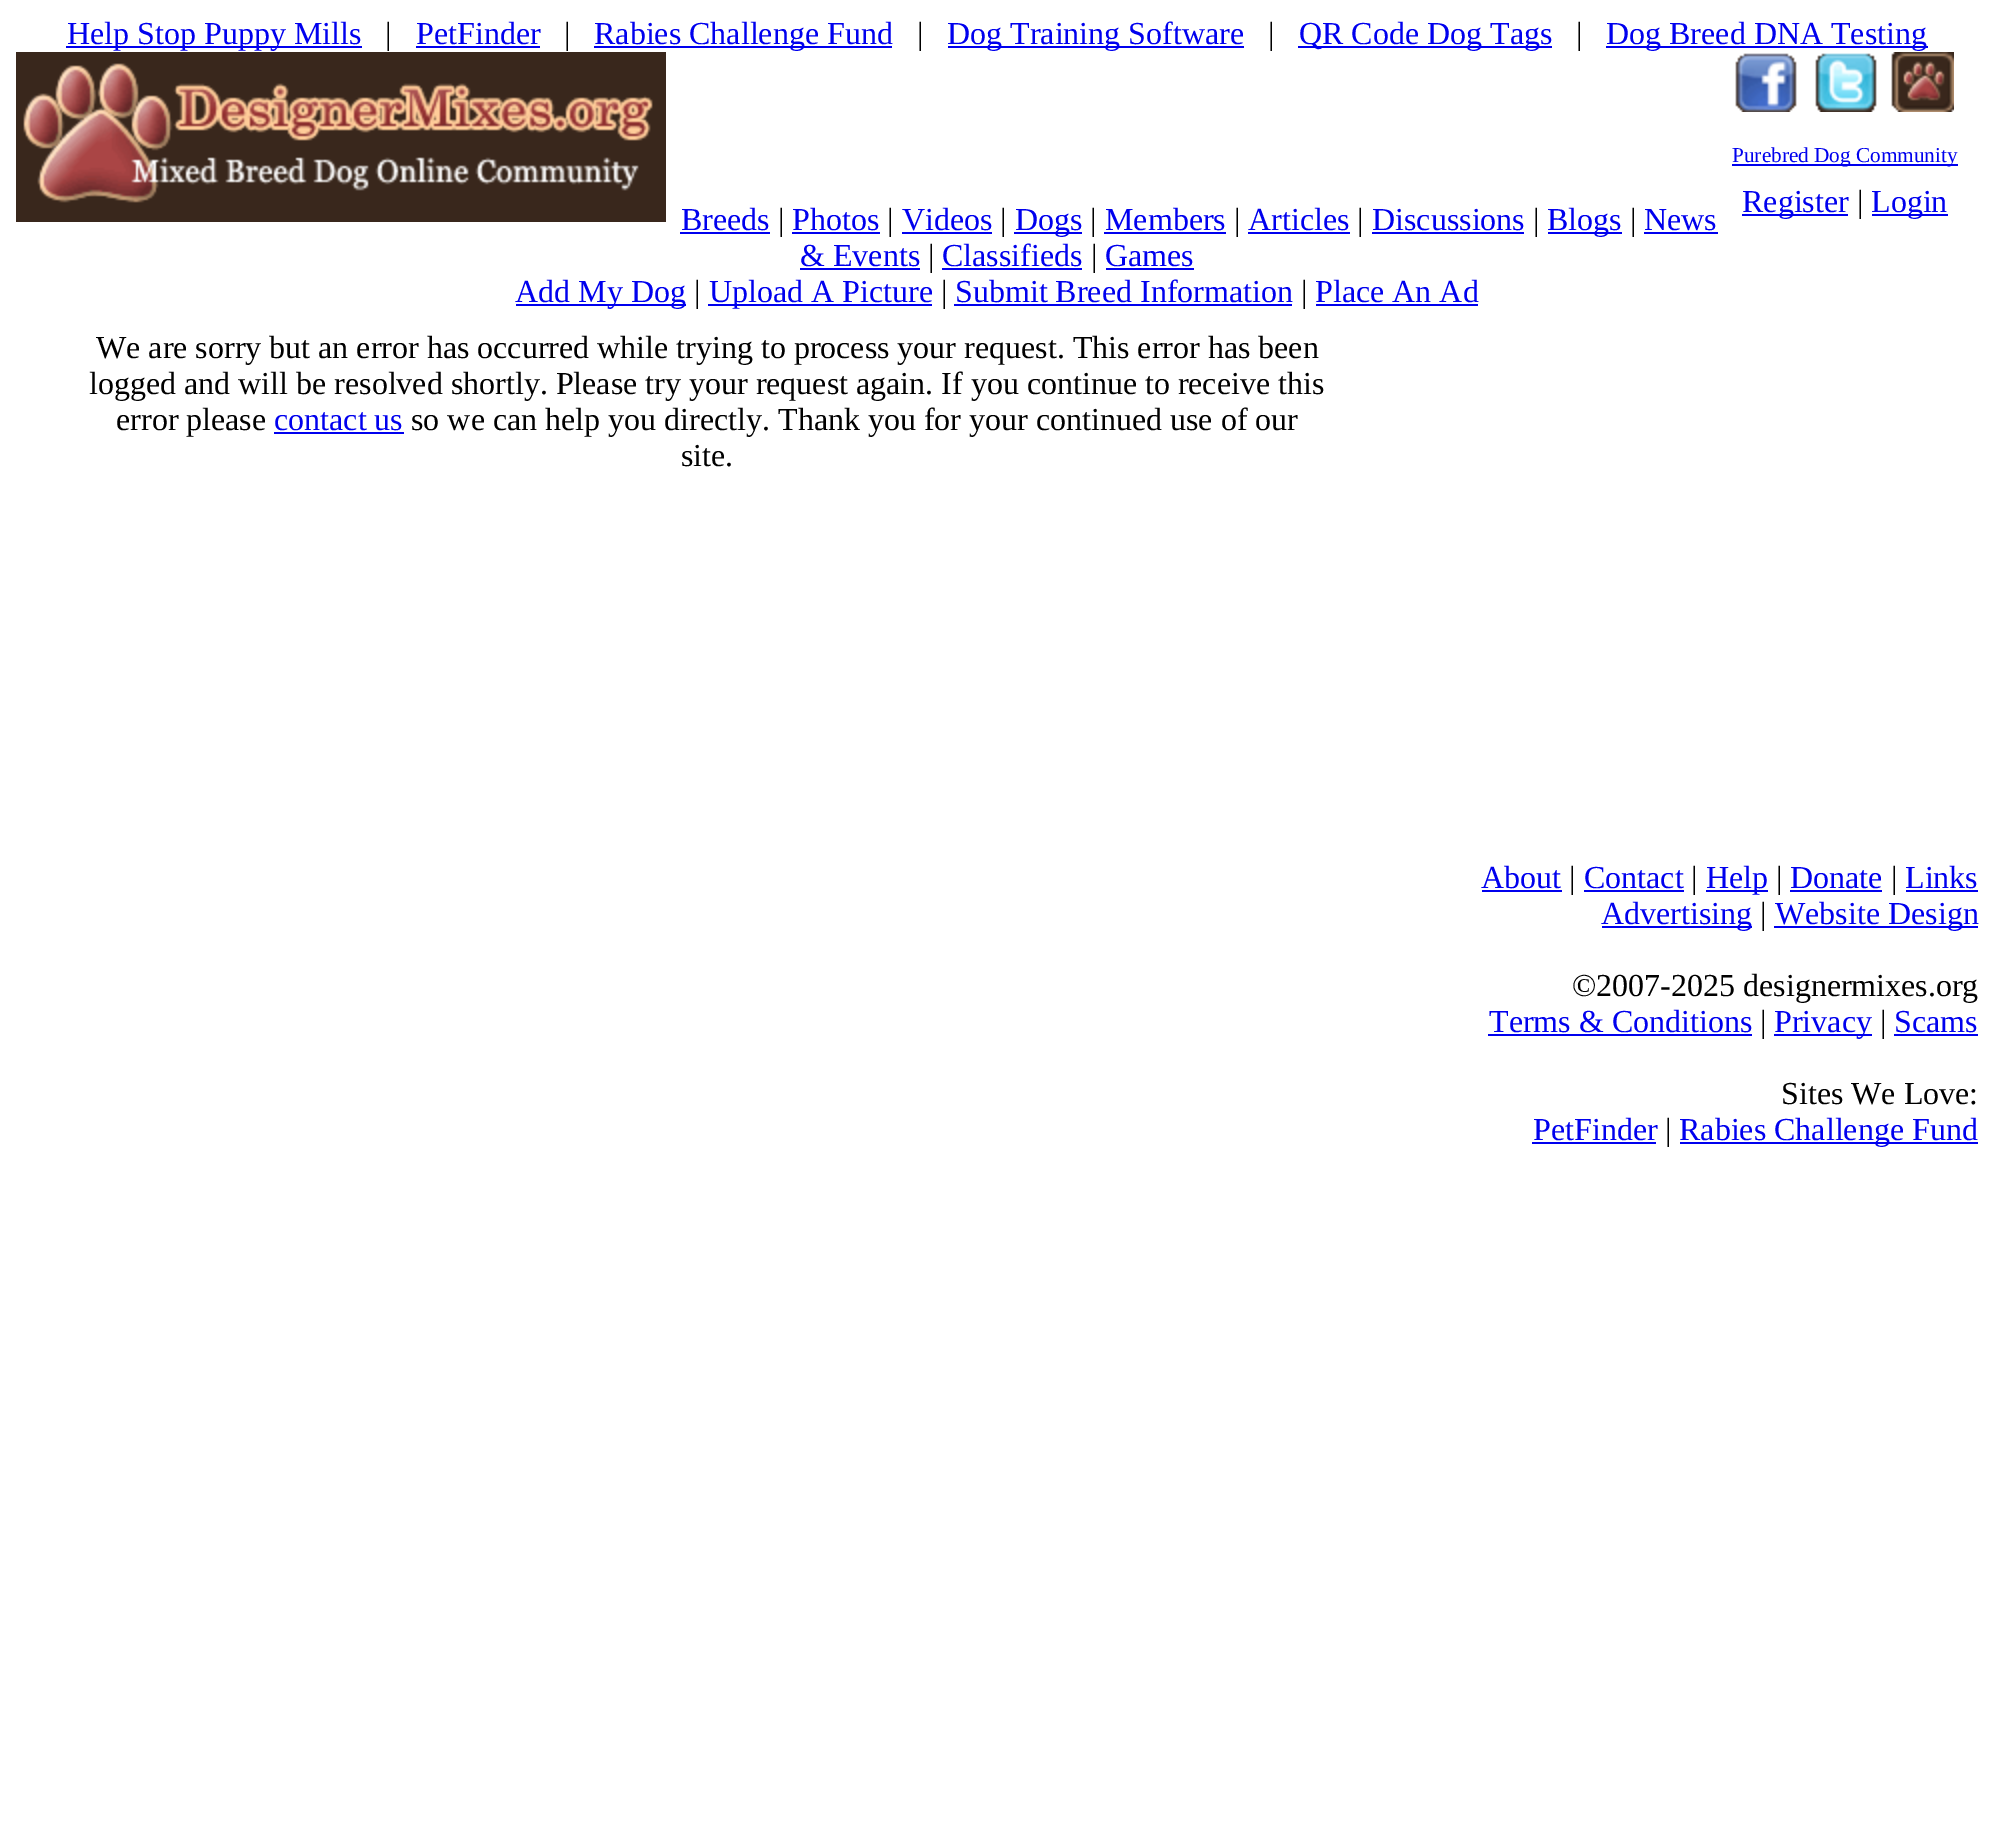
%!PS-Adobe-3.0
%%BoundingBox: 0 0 1993 1833
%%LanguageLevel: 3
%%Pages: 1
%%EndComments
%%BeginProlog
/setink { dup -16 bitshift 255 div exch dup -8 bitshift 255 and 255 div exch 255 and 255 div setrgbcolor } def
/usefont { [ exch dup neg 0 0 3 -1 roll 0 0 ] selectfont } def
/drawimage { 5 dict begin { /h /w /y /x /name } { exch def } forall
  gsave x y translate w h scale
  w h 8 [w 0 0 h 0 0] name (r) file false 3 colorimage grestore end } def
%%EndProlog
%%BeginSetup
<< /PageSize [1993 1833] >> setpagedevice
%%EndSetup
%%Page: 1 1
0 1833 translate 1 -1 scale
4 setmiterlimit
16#FFFFFF setink
0 0 1993 1833 rectfill
16#0000EE setink
66 46 296 2 rectfill
/LiberationSerif-Regular 32 usefont
67 44 moveto (Help Stop Puppy Mills) show
16#000000 setink
385 44 moveto (|) show
16#0000EE setink
416 44 moveto (PetFinder) show
416 46 124 2 rectfill
16#000000 setink
564 44 moveto (|) show
16#0000EE setink
594 46 298 2 rectfill
594 44 moveto (Rabies Challenge Fund) show
16#000000 setink
917 44 moveto (|) show
16#0000EE setink
948 46 296 2 rectfill
947 44 moveto (Dog Training Software) show
16#000000 setink
1268 44 moveto (|) show
16#0000EE setink
1298 46 254 2 rectfill
1299 44 moveto (QR Code Dog Tags) show
16#000000 setink
1576 44 moveto (|) show
16#0000EE setink
1606 46 322 2 rectfill
1606 44 moveto (Dog Breed DNA Testing) show
(img1.raw) 16 52 650 170 drawimage
(img2.raw) 1735 52 219 60 drawimage
1732 164 226 2 rectfill
/LiberationSerif-Regular 21.25 usefont
1732 162 moveto (Purebred Dog Community) show
1742 214 106 2 rectfill
/LiberationSerif-Regular 32 usefont
1742 212 moveto (Register) show
16#000000 setink
1857 212 moveto (|) show
16#0000EE setink
1872 214 76 2 rectfill
1871 212 moveto (Login) show
681 230 moveto (Breeds) show
680 232 90 2 rectfill
16#000000 setink
778 230 moveto (|) show
16#0000EE setink
792 230 moveto (Photos) show
792 232 88 2 rectfill
16#000000 setink
887 230 moveto (|) show
16#0000EE setink
902 230 moveto (Videos) show
902 232 90 2 rectfill
16#000000 setink
1000 230 moveto (|) show
16#0000EE setink
1014 232 68 2 rectfill
1015 230 moveto (Dogs) show
16#000000 setink
1090 230 moveto (|) show
16#0000EE setink
1105 230 moveto (Members) show
1104 232 122 2 rectfill
16#000000 setink
1234 230 moveto (|) show
16#0000EE setink
1248 230 moveto (Articles) show
1248 232 102 2 rectfill
16#000000 setink
1357 230 moveto (|) show
16#0000EE setink
1372 230 moveto (Discussions) show
1372 232 152 2 rectfill
16#000000 setink
1533 230 moveto (|) show
16#0000EE setink
1548 232 74 2 rectfill
1547 230 moveto (Blogs) show
16#000000 setink
1630 230 moveto (|) show
16#0000EE setink
1644 230 moveto (News) show
1644 232 74 2 rectfill
800 266 moveto (& Events) show
800 268 120 2 rectfill
16#000000 setink
928 266 moveto (|) show
16#0000EE setink
942 266 moveto (Classifieds) show
942 268 140 2 rectfill
16#000000 setink
1091 266 moveto (|) show
16#0000EE setink
1105 266 moveto (Games) show
1106 268 88 2 rectfill
516 304 170 2 rectfill
515 302 moveto (Add My Dog) show
16#000000 setink
694 302 moveto (|) show
16#0000EE setink
708 304 224 2 rectfill
709 302 moveto (Upload A Picture) show
16#000000 setink
941 302 moveto (|) show
16#0000EE setink
955 302 moveto (Submit Breed Information) show
954 304 338 2 rectfill
16#000000 setink
1301 302 moveto (|) show
16#0000EE setink
1315 302 moveto (Place An Ad) show
1316 304 162 2 rectfill
16#000000 setink
[
    [(We are sorry but an error has occurred while trying to process your request. This error has been) 96 358]
    [(logged and will be resolved shortly. Please try your request again. If you continue to receive this) 89 394]
    [(error please) 116 430]
] { aload pop moveto show } forall
16#0000EE setink
274 430 moveto (contact us) show
274 432 130 2 rectfill
16#000000 setink
411 430 moveto (so we can help you directly. Thank you for your continued use of our) show
681 466 moveto (site.) show
16#0000EE setink
1481 888 moveto (About) show
1482 890 80 2 rectfill
16#000000 setink
1569 888 moveto (|) show
16#0000EE setink
1584 888 moveto (Contact) show
1584 890 100 2 rectfill
16#000000 setink
1691 888 moveto (|) show
16#0000EE setink
1706 890 62 2 rectfill
1706 888 moveto (Help) show
16#000000 setink
1776 888 moveto (|) show
16#0000EE setink
1790 888 moveto (Donate) show
1790 890 92 2 rectfill
16#000000 setink
1891 888 moveto (|) show
16#0000EE setink
1905 888 moveto (Links) show
1906 890 72 2 rectfill
1602 926 150 2 rectfill
1601 924 moveto (Advertising) show
16#000000 setink
1760 924 moveto (|) show
16#0000EE setink
1774 926 204 2 rectfill
1775 924 moveto (Website Design) show
16#000000 setink
1572 996 moveto (©2007-2025 designermixes.org) show
16#0000EE setink
1489 1032 moveto (Terms & Conditions) show
1488 1034 264 2 rectfill
16#000000 setink
1760 1032 moveto (|) show
16#0000EE setink
1774 1034 98 2 rectfill
1774 1032 moveto (Privacy) show
16#000000 setink
1880 1032 moveto (|) show
16#0000EE setink
1894 1032 moveto (Scams) show
1894 1034 84 2 rectfill
16#000000 setink
1781 1104 moveto (Sites We Love:) show
16#0000EE setink
1533 1140 moveto (PetFinder) show
1532 1142 124 2 rectfill
16#000000 setink
1665 1140 moveto (|) show
16#0000EE setink
1680 1142 298 2 rectfill
1679 1140 moveto (Rabies Challenge Fund) show
showpage
%%EOF
